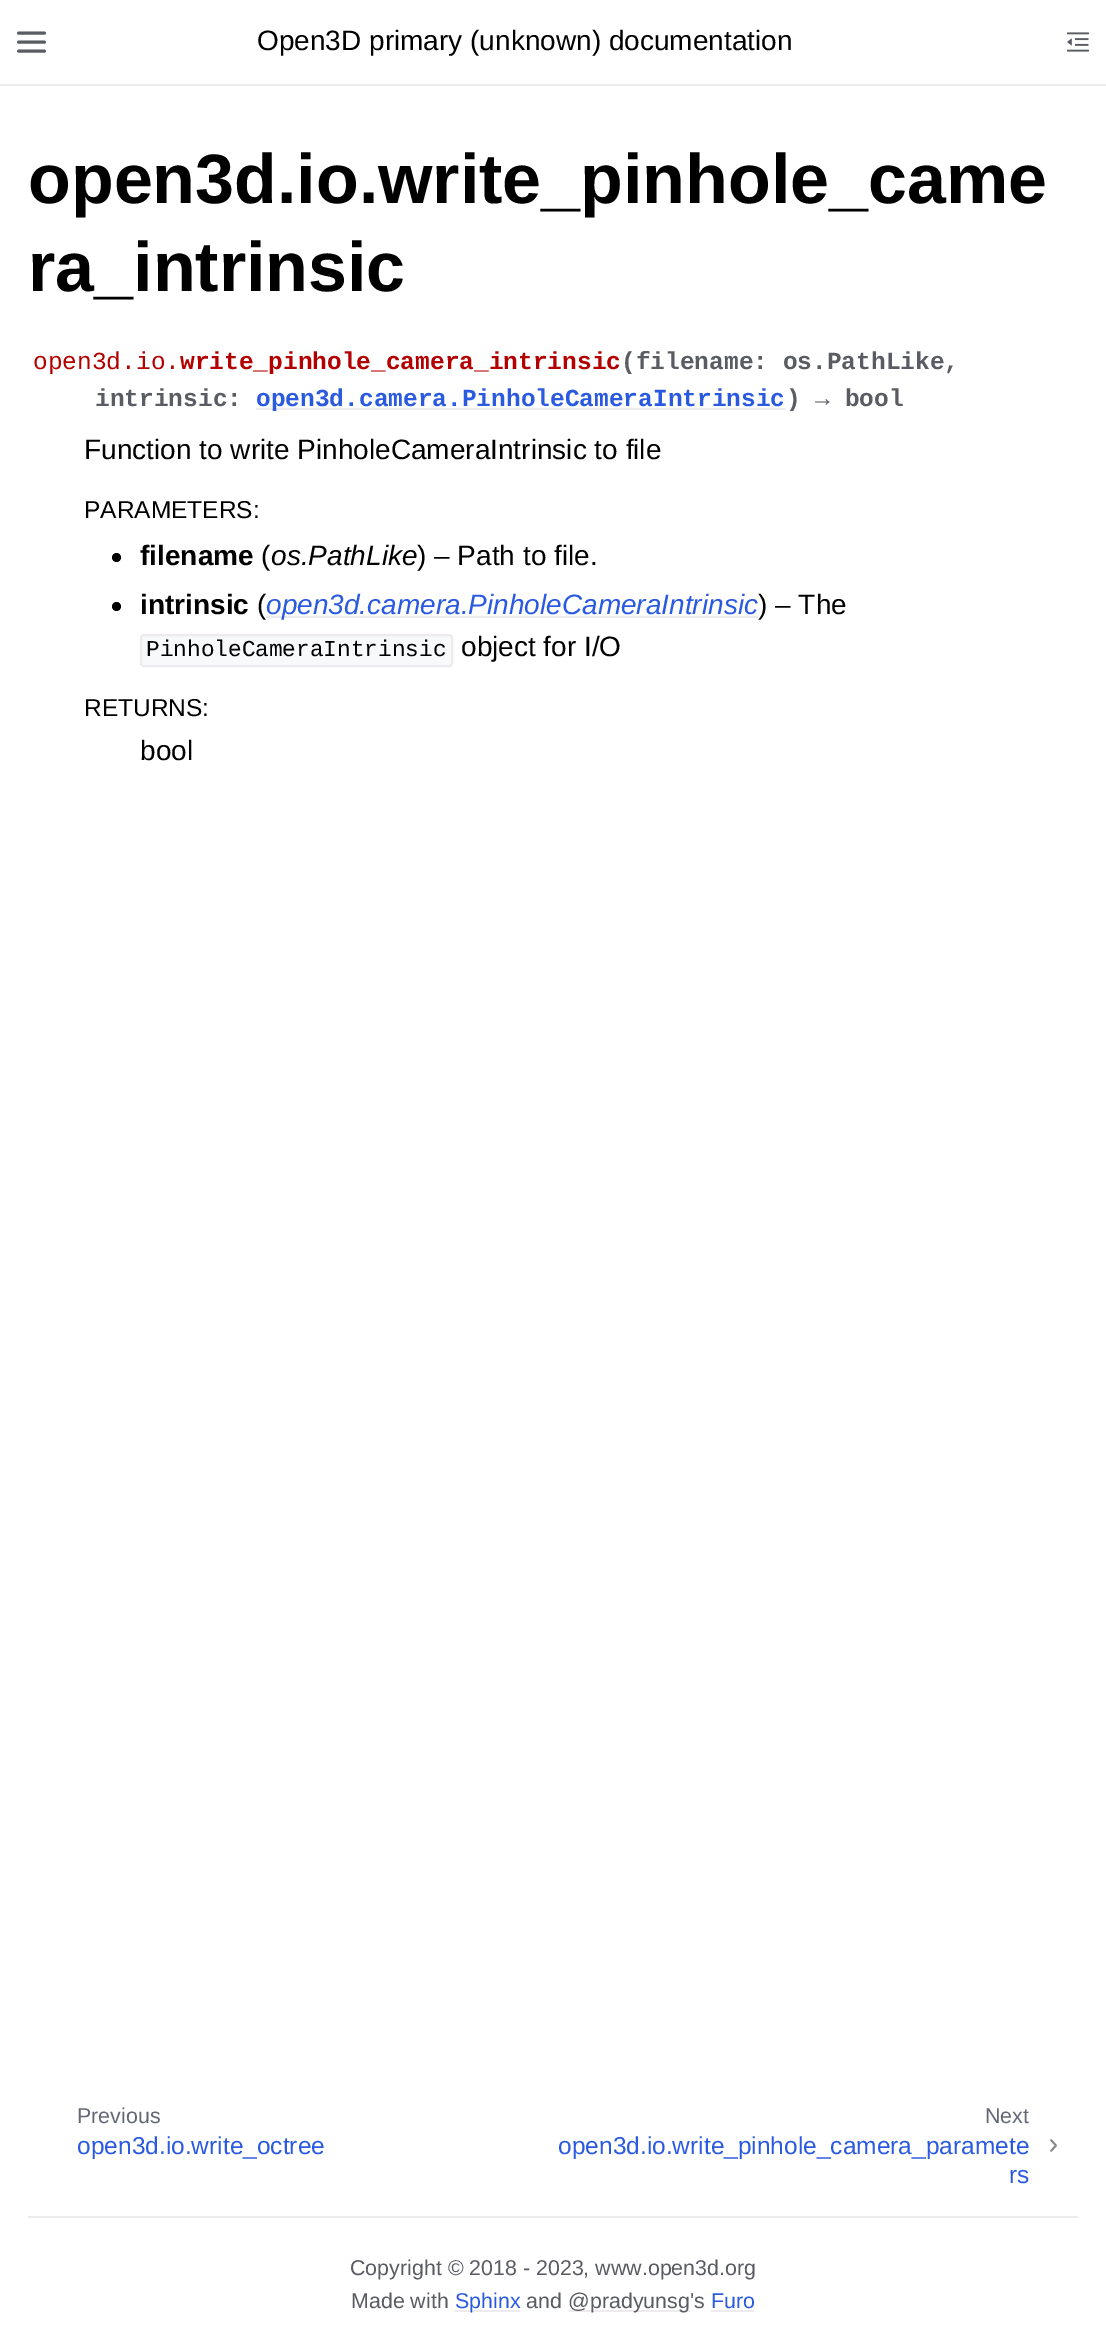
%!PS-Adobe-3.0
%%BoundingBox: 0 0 1106 2344
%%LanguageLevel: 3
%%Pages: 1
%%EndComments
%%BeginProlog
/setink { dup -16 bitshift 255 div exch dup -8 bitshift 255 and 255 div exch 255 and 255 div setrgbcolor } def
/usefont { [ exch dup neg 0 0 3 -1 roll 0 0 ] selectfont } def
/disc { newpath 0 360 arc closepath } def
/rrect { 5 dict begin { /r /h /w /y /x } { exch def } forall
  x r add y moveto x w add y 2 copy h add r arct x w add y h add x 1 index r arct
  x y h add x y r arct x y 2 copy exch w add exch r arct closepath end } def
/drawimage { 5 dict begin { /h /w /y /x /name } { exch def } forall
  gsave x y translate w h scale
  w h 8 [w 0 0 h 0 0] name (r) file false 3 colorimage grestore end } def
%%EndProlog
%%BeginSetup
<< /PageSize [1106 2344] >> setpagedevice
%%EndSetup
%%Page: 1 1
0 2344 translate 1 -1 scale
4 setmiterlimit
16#FFFFFF setink
0 0 1106 2344 rectfill
16#EEEBEE setink
0 84 1106 2 rectfill
16#5A5C63 setink
2.9 setlinewidth
1 setlinecap
1 setlinejoin
18.5 42 moveto 44.5 42 lineto 18.5 33 moveto 44.5 33 lineto 18.5 51 moveto 44.5 51 lineto stroke
/LiberationSans-Regular 28 usefont
16#000000 setink
257 50 moveto (Open3D primary \(unknown\) documentation) show
(img1.raw) 1067 32 22 20 drawimage
/LiberationSans-Bold 70 usefont
28 203 moveto (open3d.io.write_pinhole_came) show
28 291 moveto (ra_intrinsic) show
/LiberationMono-Regular 24.5 usefont
16#B30000 setink
33 369 moveto (open3d.io.) show
/LiberationMono-Bold 24.5 usefont
180 369 moveto (write_pinhole_camera_intrinsic) show
16#5A5C63 setink
621 369 moveto (\(filename: os.PathLike,) show
95 406 moveto (intrinsic:) show
16#EEEBEE setink
256 408 530 2 rectfill
16#2A5ADF setink
256 406 moveto (open3d.camera.PinholeCameraIntrinsic) show
16#5A5C63 setink
786 406 moveto (\) → bool) show
/LiberationSans-Regular 28 usefont
16#000000 setink
84 459 moveto (Function to write PinholeCameraIntrinsic to file) show
/LiberationSans-Regular 24.5 usefont
84 518 moveto (PARAMETERS:) show
116.5 557.5 4.5 disc fill
/LiberationSans-Bold 28 usefont
140 565 moveto (filename) show
/LiberationSans-Regular 28 usefont
261 565 moveto (\() show
/LiberationSans-Italic 28 usefont
271 565 moveto (os.PathLike) show
/LiberationSans-Regular 28 usefont
417 565 moveto (\) – Path to file.) show
116.5 606.5 4.5 disc fill
/LiberationSans-Bold 28 usefont
140 614 moveto (intrinsic) show
/LiberationSans-Regular 28 usefont
257 614 moveto (\() show
16#EEEBEE setink
266 616 492 2 rectfill
/LiberationSans-Italic 28 usefont
16#2A5ADF setink
266 614 moveto (open3d.camera.PinholeCameraIntrinsic) show
/LiberationSans-Regular 28 usefont
16#000000 setink
758 614 moveto (\) – The) show
16#F8F9FB setink
141 635 311 31 3 rrect gsave fill grestore
16#EEEBEE setink
2 setlinewidth
0 setlinecap
0 setlinejoin
stroke
/LiberationMono-Regular 22.75 usefont
16#000000 setink
146 656 moveto (PinholeCameraIntrinsic) show
/LiberationSans-Regular 28 usefont
461 656 moveto (object for I/O) show
/LiberationSans-Regular 24.5 usefont
84 716 moveto (RETURNS:) show
/LiberationSans-Regular 28 usefont
140 760 moveto (bool) show
/LiberationSans-Regular 21.4 usefont
16#646776 setink
77 2123 moveto (Previous) show
/LiberationSans-Regular 24.5 usefont
16#2A5ADF setink
77 2154 moveto (open3d.io.write_octree) show
/LiberationSans-Regular 21.4 usefont
16#646776 setink
985 2123 moveto (Next) show
/LiberationSans-Regular 24.5 usefont
16#2A5ADF setink
558 2154 moveto (open3d.io.write_pinhole_camera_paramete) show
1009 2183 moveto (rs) show
16#878787 setink
1.8 setlinewidth
1 setlinecap
1 setlinejoin
1051 2151 moveto 1056 2145.5 lineto 1051 2140 lineto stroke
16#EEEBEE setink
28 2216 1050 2 rectfill
/LiberationSans-Regular 21.4 usefont
16#5A5C63 setink
350 2275 moveto (Copyright © 2018 - 2023, www.open3d.org) show
351 2308 moveto (Made with) show
16#EEEBEE setink
455 2310 65 2 rectfill
16#2A5ADF setink
455 2308 moveto (Sphinx) show
16#5A5C63 setink
526 2308 moveto (and) show
16#EEEBEE setink
569 2310 121 2 rectfill
16#5A5C63 setink
568 2308 moveto (@pradyunsg's) show
16#2A5ADF setink
711 2308 moveto (Furo) show
16#EEEBEE setink
711 2310 43 2 rectfill
showpage
%%EOF
